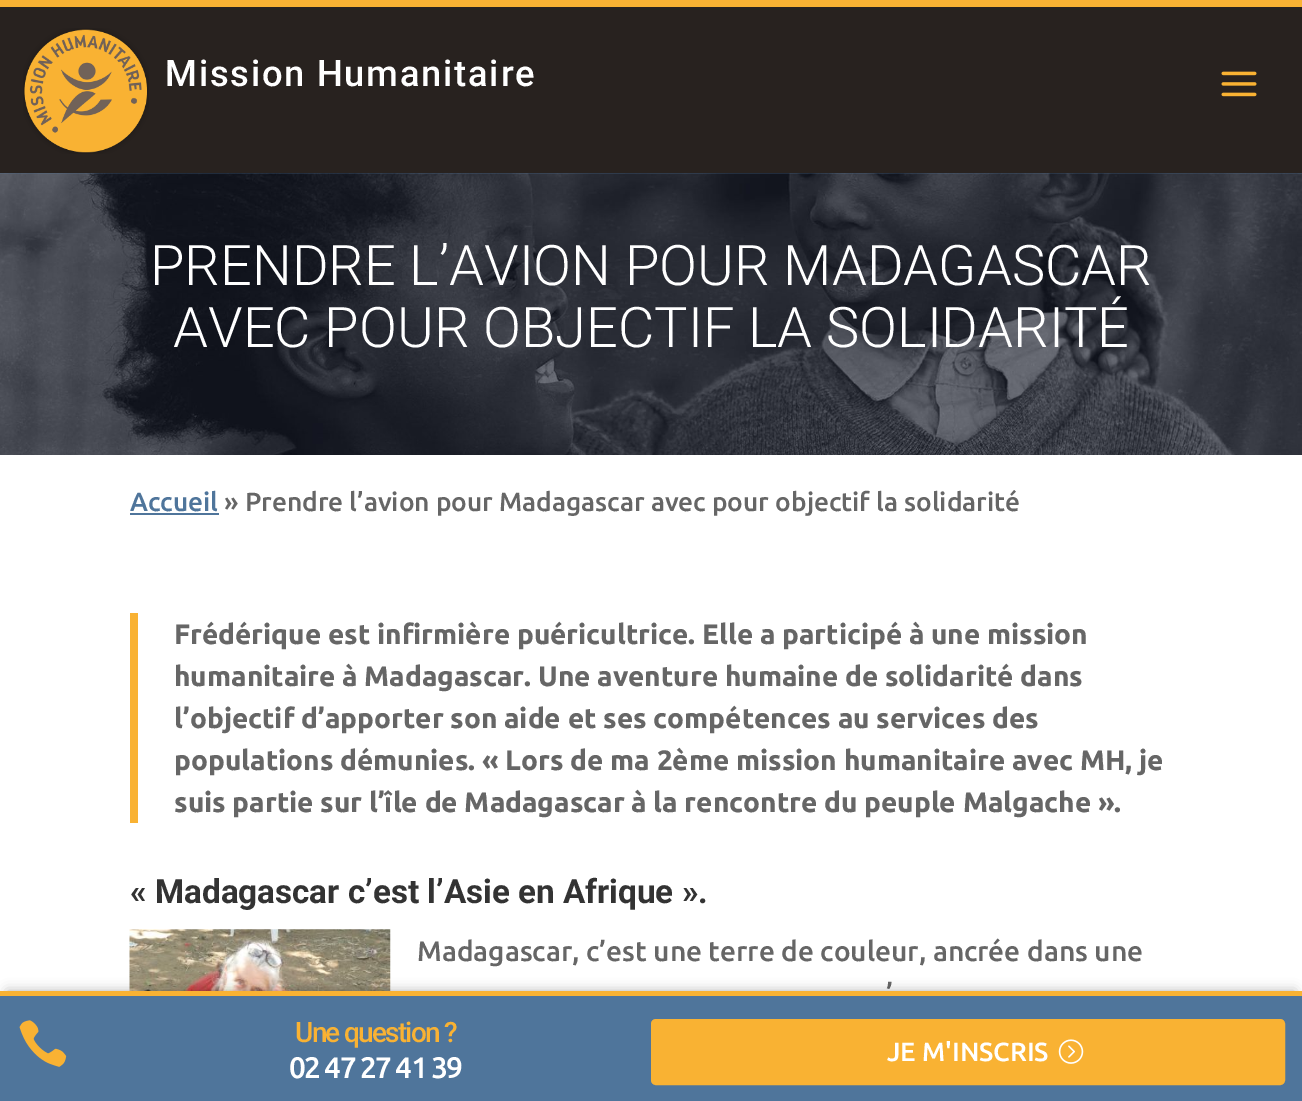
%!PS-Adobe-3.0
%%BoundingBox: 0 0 1302 1101
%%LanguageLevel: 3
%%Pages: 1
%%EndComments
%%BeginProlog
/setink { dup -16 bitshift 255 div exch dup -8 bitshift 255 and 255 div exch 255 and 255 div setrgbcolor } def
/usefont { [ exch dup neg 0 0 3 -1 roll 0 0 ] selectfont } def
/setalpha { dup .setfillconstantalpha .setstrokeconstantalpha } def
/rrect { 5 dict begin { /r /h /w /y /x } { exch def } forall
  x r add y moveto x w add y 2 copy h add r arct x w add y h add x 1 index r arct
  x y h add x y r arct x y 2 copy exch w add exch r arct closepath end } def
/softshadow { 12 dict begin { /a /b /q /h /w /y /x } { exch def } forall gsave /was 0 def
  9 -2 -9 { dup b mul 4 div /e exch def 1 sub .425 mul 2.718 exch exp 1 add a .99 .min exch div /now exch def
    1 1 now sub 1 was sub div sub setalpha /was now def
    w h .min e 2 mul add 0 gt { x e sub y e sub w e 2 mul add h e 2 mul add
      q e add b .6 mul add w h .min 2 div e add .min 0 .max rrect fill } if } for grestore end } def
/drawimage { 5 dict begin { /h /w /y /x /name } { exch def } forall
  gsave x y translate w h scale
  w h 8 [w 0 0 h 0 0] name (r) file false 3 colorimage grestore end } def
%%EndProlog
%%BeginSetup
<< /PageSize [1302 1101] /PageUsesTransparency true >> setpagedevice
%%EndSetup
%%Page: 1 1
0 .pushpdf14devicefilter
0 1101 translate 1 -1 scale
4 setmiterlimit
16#FFFFFF setink
0 0 1302 1101 rectfill
16#28221F setink
0 7 1302 166 rectfill
16#F9B233 setink
0 0 1302 7 rectfill
(img1.raw) 23 28 126 126 drawimage
/Roboto-Medium 36.4 usefont
16#FFFFFF setink
165 86 moveto 1.75 0 (Mission Humanitaire) ashow
(img2.raw) 1221 71 36 26 drawimage
(img3.raw) 0 173 1302 282 drawimage
/Roboto-Light 56 usefont
150 285 moveto (PRENDRE L’AVION POUR MADAGASCAR) show
173 347 moveto (AVEC POUR OBJECTIF LA SOLIDARITÉ) show
/Ubuntu-Medium 26.25 usefont
16#4F759B setink
130 511 moveto (Accueil) show
130 513 89 2 rectfill
16#666666 setink
224 511 moveto (» Prendre l’avion pour Madagascar avec pour objectif la solidarité) show
16#F9B233 setink
130 613 8 210 rectfill
/Ubuntu-Bold 28 usefont
16#666666 setink
[
    [(Frédérique est infirmière puéricultrice. Elle a participé à une mission) 174 644]
    [(humanitaire à Madagascar. Une aventure humaine de solidarité dans) 174 686]
    [(l’objectif d’apporter son aide et ses compétences au services des) 174 728]
    [(populations démunies. « Lors de ma 2ème mission humanitaire avec MH, je) 174 770]
    [(suis partie sur l’île de Madagascar à la rencontre du peuple Malgache ».) 174 812]
] { aload pop moveto show } forall
/Roboto-Bold 33.25 usefont
16#333333 setink
130 903 moveto (« Madagascar c’est l’Asie en Afrique ».) show
(img4.raw) 129 929 262 62 drawimage
/Ubuntu-Medium 28 usefont
16#666666 setink
417 961 moveto (Madagascar, c’est une terre de couleur, ancrée dans une) show
886 1003 moveto (’) show
16#000000 setink
7 991 1288 98 0 6 0.3 softshadow
16#4F759B setink
0 996 1302 105 rectfill
16#F9B233 setink
0 991 1302 5 rectfill
(img5.raw) 19 1020 48 47 drawimage
/Roboto-Medium 28 usefont
295 1042 moveto -1.75 0 (Une question ?) ashow
/Ubuntu-Medium 29.75 usefont
16#FFFFFF setink
289 1078 moveto -1.75 0 (02 47 27 41 39) ashow
16#F9B233 setink
653 1021 630 62 3 rrect gsave fill grestore
4 setlinewidth
stroke
/Ubuntu-Medium 26.25 usefont
16#FFFFFF setink
887 1061 moveto (JE M'INSCRIS) show
(img6.raw) 1058 1039 26 25 drawimage
.poppdf14devicefilter showpage
%%EOF
